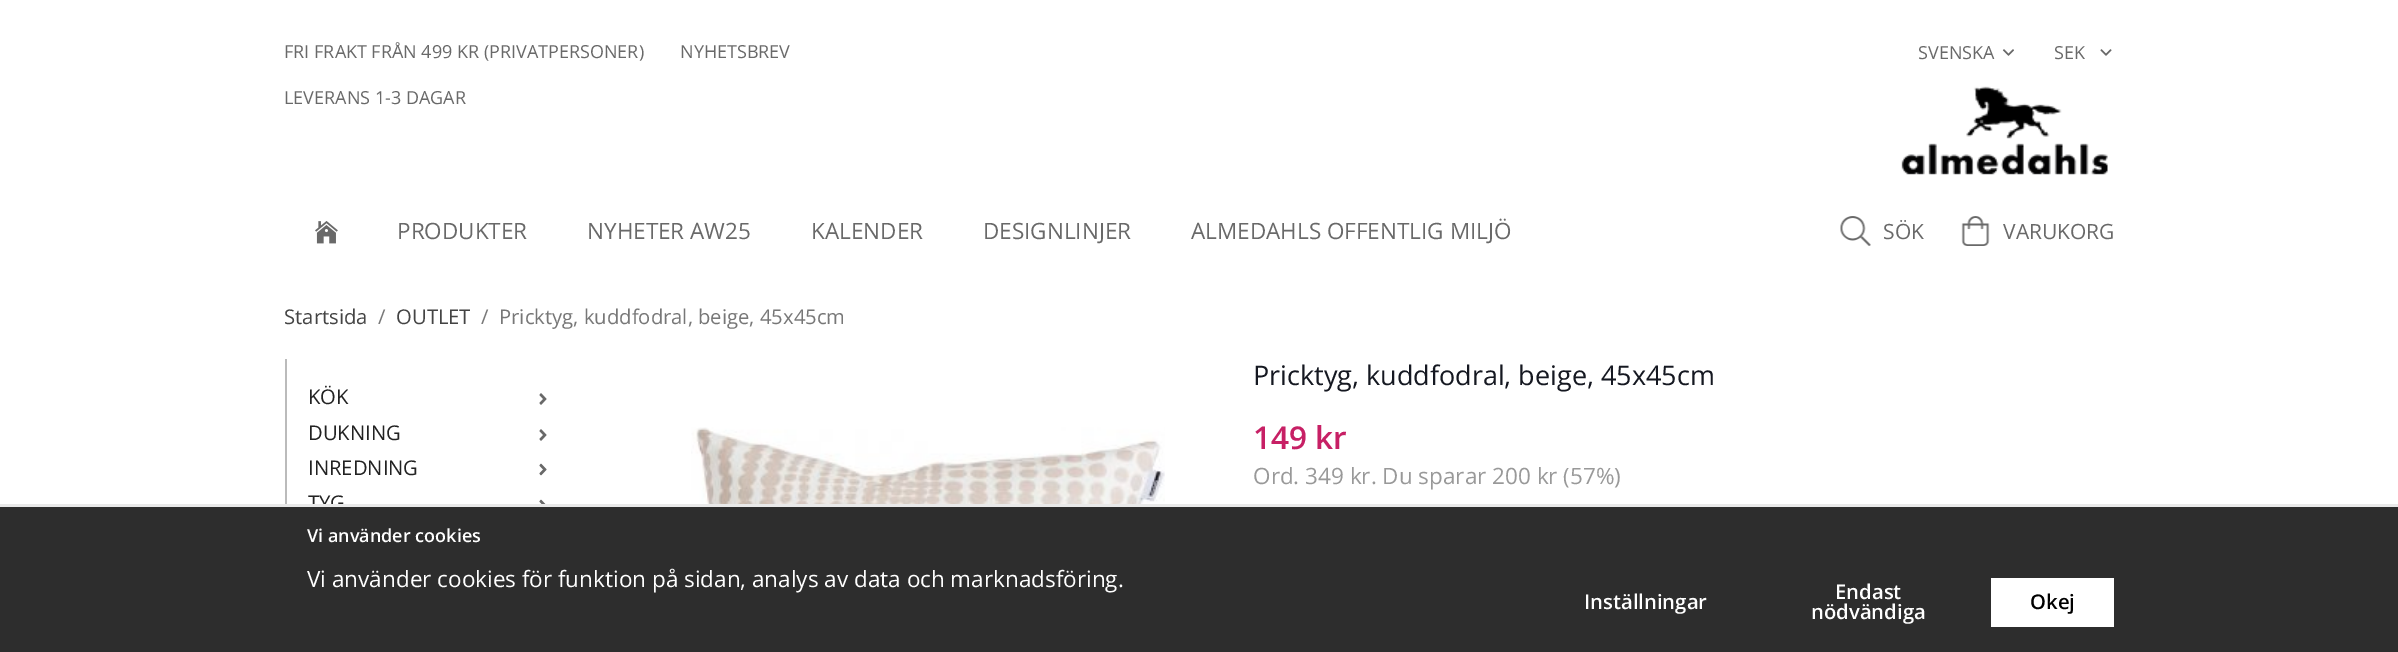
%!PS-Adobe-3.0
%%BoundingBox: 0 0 2398 652
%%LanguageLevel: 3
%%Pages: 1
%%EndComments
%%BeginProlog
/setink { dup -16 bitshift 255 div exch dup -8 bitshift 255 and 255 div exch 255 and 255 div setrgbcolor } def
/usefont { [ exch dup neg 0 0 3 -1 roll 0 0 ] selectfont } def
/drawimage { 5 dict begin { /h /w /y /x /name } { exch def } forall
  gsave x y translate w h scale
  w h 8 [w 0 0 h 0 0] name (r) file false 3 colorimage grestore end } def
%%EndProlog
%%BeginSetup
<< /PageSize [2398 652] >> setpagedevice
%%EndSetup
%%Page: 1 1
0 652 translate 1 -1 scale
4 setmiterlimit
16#FFFFFF setink
0 0 2398 652 rectfill
/OpenSans-Regular 18 usefont
16#696969 setink
284 58 moveto (FRI FRAKT FRÅN 499 KR \(PRIVATPERSONER\)) show
680 58 moveto (NYHETSBREV) show
gsave
1919 39 76 26 rectclip
1918 59 moveto (SVENSKA) show
grestore
(img1.raw) 2002 49 12 7 drawimage
2054 59 moveto (SEK) show
(img2.raw) 2100 49 12 7 drawimage
284 104 moveto (LEVERANS 1-3 DAGAR) show
(img3.raw) 1901 86 207 89 drawimage
(img4.raw) 315 221 23 23 drawimage
/OpenSans-Regular 22.5 usefont
[
    [(PRODUKTER) 397 239]
    [(NYHETER AW25) 587 239]
    [(KALENDER) 811 239]
    [(DESIGNLINJER) 983 239]
    [(ALMEDAHLS OFFENTLIG MILJÖ) 1191 239]
] { aload pop moveto show } forall
(img5.raw) 1840 216 31 30 drawimage
/OpenSans-Regular 21 usefont
1883 239 moveto (SÖK) show
(img6.raw) 1961 216 29 30 drawimage
2003 239 moveto (VARUKORG) show
/OpenSans-Regular 20.25 usefont
16#444444 setink
284 324 moveto (Startsida) show
16#777777 setink
378 324 moveto (/) show
16#444444 setink
396 324 moveto (OUTLET) show
16#777777 setink
481 324 moveto (/) show
499 324 moveto (Pricktyg, kuddfodral, beige, 45x45cm) show
16#BBBBBB setink
285 359 2 145 rectfill
16#222222 setink
308 404 moveto (KÖK) show
(img7.raw) 539 393 8 12 drawimage
308 440 moveto (DUKNING) show
(img7.raw) 539 429 8 12 drawimage
308 475 moveto (INREDNING) show
(img8.raw) 539 463 8 13 drawimage
308 510 moveto (TYG) show
(img9.raw) 539 499 7 5 drawimage
(img10.raw) 691 427 474 77 drawimage
/OpenSans-Regular 27 usefont
16#151821 setink
1253 385 moveto (Pricktyg, kuddfodral, beige, 45x45cm) show
/OpenSans-SemiBold 31.5 usefont
16#C72065 setink
1253 449 moveto (149 kr) show
/OpenSans-Regular 22.5 usefont
16#999999 setink
1253 484 moveto (Ord. 349 kr. Du sparar 200 kr \(57%\)) show
16#2D2D2D setink
0 507 2398 145 rectfill
16#E9E9E9 setink
0 504 2398 3 rectfill
/OpenSans-SemiBold 18 usefont
16#FFFFFF setink
307 542 moveto (Vi använder cookies) show
/OpenSans-Regular 22.5 usefont
307 587 moveto (Vi använder cookies för funktion på sidan, analys av data och marknadsföring.) show
/OpenSans-SemiBold 20.25 usefont
[
    [(Inställningar) 1584 609]
    [(Endast) 1835 599]
    [(nödvändiga) 1811 619]
] { aload pop moveto show } forall
1991 578 123 49 rectfill
16#000000 setink
2030 609 moveto (Okej) show
showpage
%%EOF
